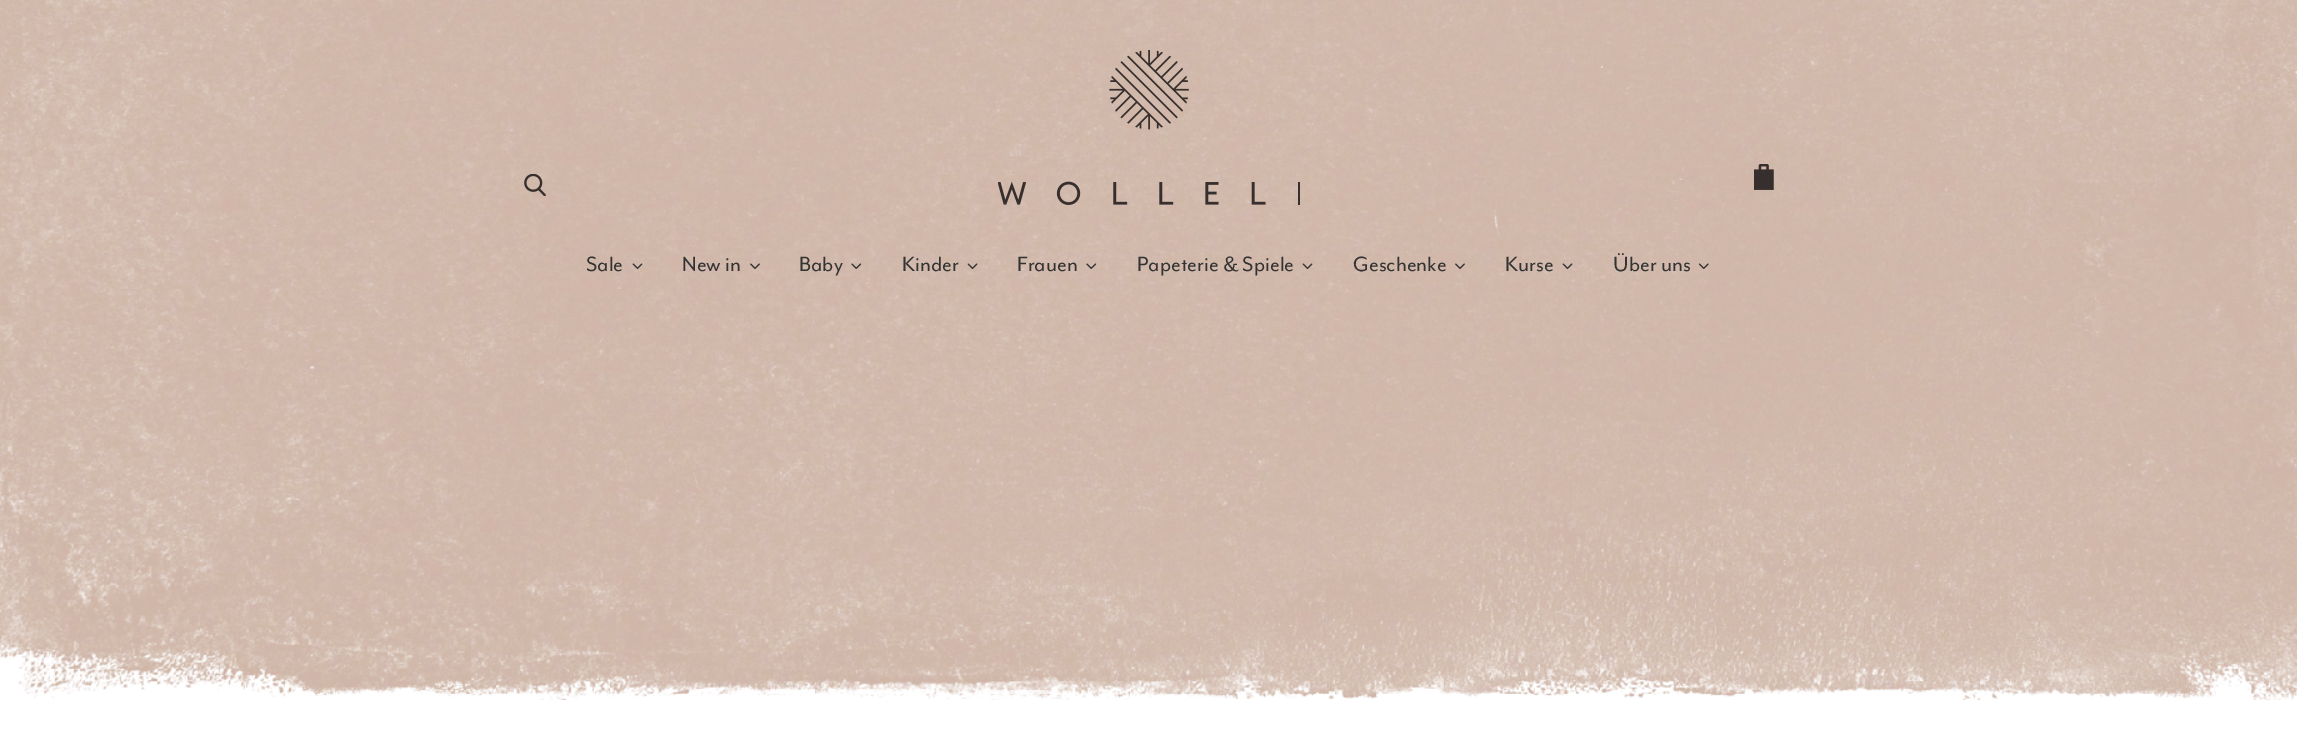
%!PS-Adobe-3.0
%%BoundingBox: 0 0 2297 744
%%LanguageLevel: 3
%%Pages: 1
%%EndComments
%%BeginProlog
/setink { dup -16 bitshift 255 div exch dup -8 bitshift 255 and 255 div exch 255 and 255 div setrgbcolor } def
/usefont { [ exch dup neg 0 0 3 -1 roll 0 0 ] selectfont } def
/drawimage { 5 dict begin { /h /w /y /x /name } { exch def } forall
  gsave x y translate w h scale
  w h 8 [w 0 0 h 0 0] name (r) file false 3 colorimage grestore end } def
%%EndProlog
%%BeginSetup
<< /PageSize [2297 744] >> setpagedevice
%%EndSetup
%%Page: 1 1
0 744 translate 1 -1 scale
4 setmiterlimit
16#FFFFFF setink
0 0 2297 744 rectfill
(img1.raw) 0 0 2297 700 drawimage
(img2.raw) 524 174 22 22 drawimage
(img3.raw) 998 50 302 155 drawimage
(img4.raw) 1754 164 20 26 drawimage
/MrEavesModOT-Regular 23.75 usefont
16#333333 setink
586 271 moveto (Sale) show
(img5.raw) 632 263 11 6 drawimage
682 271 moveto (New in) show
(img6.raw) 750 263 10 6 drawimage
799 271 moveto (Baby) show
(img7.raw) 851 263 11 6 drawimage
902 271 moveto (Kinder) show
(img8.raw) 967 263 11 6 drawimage
1017 271 moveto (Frauen) show
(img9.raw) 1086 263 11 6 drawimage
1137 271 moveto (Papeterie & Spiele) show
(img10.raw) 1302 263 11 6 drawimage
1353 271 moveto (Geschenke) show
(img11.raw) 1455 263 10 6 drawimage
1505 271 moveto (Kurse) show
(img12.raw) 1562 263 11 6 drawimage
1613 271 moveto (Über uns) show
(img13.raw) 1698 263 11 6 drawimage
showpage
%%EOF
